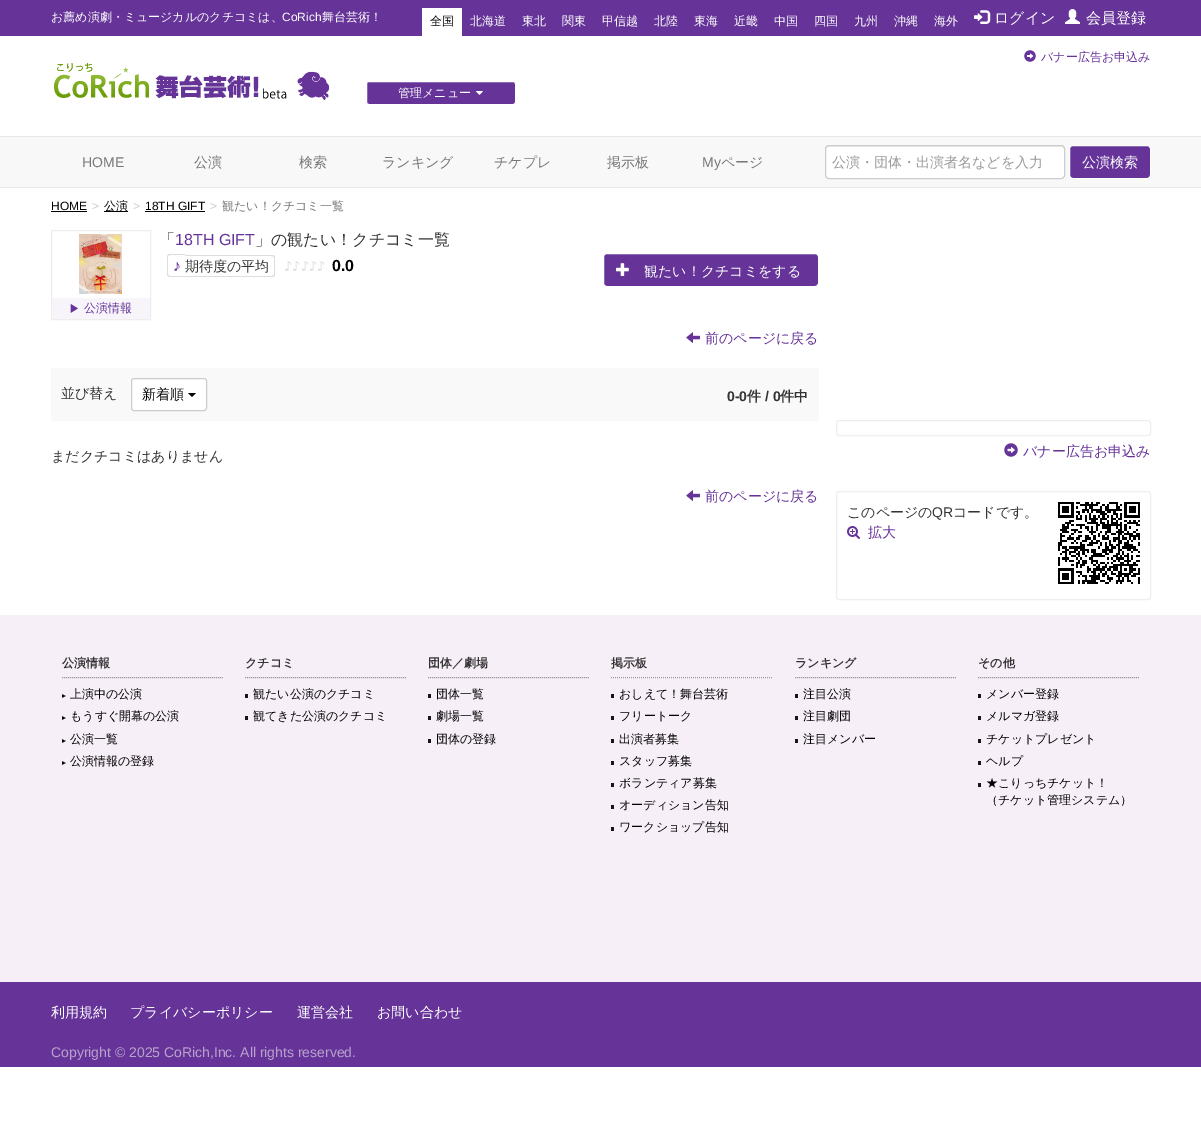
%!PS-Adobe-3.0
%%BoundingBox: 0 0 1201 1148
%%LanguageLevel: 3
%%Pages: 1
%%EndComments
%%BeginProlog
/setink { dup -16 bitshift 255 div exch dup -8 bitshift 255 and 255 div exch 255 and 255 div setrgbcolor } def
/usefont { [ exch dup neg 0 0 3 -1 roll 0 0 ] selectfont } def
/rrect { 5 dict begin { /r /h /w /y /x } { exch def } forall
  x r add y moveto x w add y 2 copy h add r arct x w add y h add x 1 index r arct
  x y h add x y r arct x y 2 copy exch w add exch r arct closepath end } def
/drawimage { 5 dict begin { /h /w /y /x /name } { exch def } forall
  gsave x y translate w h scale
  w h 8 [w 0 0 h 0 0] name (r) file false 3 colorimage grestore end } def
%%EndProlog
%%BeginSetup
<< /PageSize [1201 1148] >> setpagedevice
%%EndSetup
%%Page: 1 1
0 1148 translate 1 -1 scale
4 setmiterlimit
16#FFFFFF setink
0 0 1201 1148 rectfill
16#663399 setink
0 0 1201 36 rectfill
/WenQuanYiZenHei-Medium 12 usefont
16#FFFFFF setink
51 21 moveto (お薦め演劇・ミュージカルのクチコミは、) show
/LiberationSans-Regular 12 usefont
282 21 moveto (CoRich) show
/WenQuanYiZenHei-Medium 12 usefont
322 21 moveto (舞台芸術！) show
422 8 40 28 rectfill
16#000000 setink
430 25 moveto (全国) show
16#FFFFFF setink
[
    [(北海道) 470 25]
    [(東北) 522 25]
    [(関東) 562 25]
    [(甲信越) 602 25]
    [(北陸) 654 25]
    [(東海) 694 25]
    [(近畿) 734 25]
    [(中国) 774 25]
    [(四国) 814 25]
    [(九州) 854 25]
    [(沖縄) 894 25]
    [(海外) 934 25]
] { aload pop moveto show } forall
(img1.raw) 974 10 17 14 drawimage
/WenQuanYiZenHei-Medium 15 usefont
994 23 moveto (ログイン) show
(img2.raw) 1065 9 15 15 drawimage
1086 23 moveto (会員登録) show
(img3.raw) 1024 50 12 12 drawimage
/WenQuanYiZenHei-Medium 12 usefont
16#663399 setink
1041 61 moveto (バナー広告お申込み) show
(img4.raw) 54 63 276 37 drawimage
366.5 81.5 149 23 2.5 rrect gsave fill grestore
16#FFFFFF setink
stroke
398 97 moveto (管理メニュー) show
(img5.raw) 476 91 7 4 drawimage
[
    [0 137 1201 50 16#F8F8F8]
    [0 136 1201 1 16#E7E7E7]
    [0 187 1201 1 16#E7E7E7]
] { aload pop setink rectfill } forall
/LiberationSans-Regular 14 usefont
16#777777 setink
82 167 moveto (HOME) show
/WenQuanYiZenHei-Medium 14 usefont
[
    [(公演) 194 167]
    [(検索) 299 167]
    [(ランキング) 382 167]
    [(チケプレ) 494 167]
    [(掲示板) 607 167]
] { aload pop moveto show } forall
/LiberationSans-Regular 14 usefont
702 167 moveto (My) show
/WenQuanYiZenHei-Medium 14 usefont
721 167 moveto (ページ) show
16#FFFFFF setink
825 145 240 34 4 rrect fill
16#ECECEC setink
829 147 moveto 1062 147 lineto 1064 148 lineto 1064 150 lineto 1064 148 1063 146 1061 146 curveto 829 146 lineto 827 146 826 148 826 150 curveto 826 148 827 147 829 147 curveto closepath fill
16#CCCCCC setink
825.5 145.5 239 33 3.5 rrect stroke
16#999999 setink
832 167 moveto (公演・団体・出演者名などを入力) show
16#663399 setink
1069.5 145.5 81 33 3.5 rrect gsave fill grestore
16#FFFFFF setink
stroke
1082 167 moveto (公演検索) show
/LiberationSans-Regular 12 usefont
16#000000 setink
51 210 moveto (HOME) show
51 211 36 1 rectfill
16#CCCCCC setink
92 210 moveto (>) show
16#000000 setink
104 211 24 1 rectfill
/WenQuanYiZenHei-Medium 12 usefont
104 210 moveto (公演) show
/LiberationSans-Regular 12 usefont
16#CCCCCC setink
133 210 moveto (>) show
16#000000 setink
145 210 moveto (18TH GIFT) show
145 211 60 1 rectfill
16#CCCCCC setink
210 210 moveto (>) show
/WenQuanYiZenHei-Medium 12 usefont
16#777777 setink
222 210 moveto (観たい！クチコミ一覧) show
/WenQuanYiZenHei-Medium 16 usefont
16#333333 setink
159 245 moveto (「) show
/LiberationSans-Regular 16 usefont
16#663399 setink
175 245 moveto (18TH GIFT) show
/WenQuanYiZenHei-Medium 16 usefont
16#333333 setink
255 245 moveto (」の観たい！クチコミ一覧) show
16#EEEEEE setink
51.5 230.5 99 89 rectstroke
(img6.raw) 79 234 43 60 drawimage
16#F7F5FA setink
52 298 moveto 150 298 lineto 150 317 lineto 150 318 149 319 148 319 curveto 54 319 lineto 53 319 52 318 52 317 curveto closepath fill
(img7.raw) 70 304 8 9 drawimage
/WenQuanYiZenHei-Medium 12 usefont
16#663399 setink
84 312 moveto (公演情報) show
16#DDDDDD setink
170 254 moveto 185 254 lineto 185 277 lineto 170 277 lineto 168.5 277 167 275.5 167 274 curveto 167 257 lineto 167 255.5 168.5 254 170 254 curveto closepath 170 255 moveto 185 255 lineto 185 276 lineto 170 276 lineto 169 276 168 275 168 274 curveto 168 257 lineto 168 256 169 255 170 255 curveto closepath eofill
/LiberationSans-Bold 16 usefont
16#663399 setink
173 271 moveto (♪) show
16#DDDDDD setink
185 255 moveto 272 255 lineto 274 255 275 256 275 258 curveto 275 274 lineto 275 276 274 277 272 277 curveto 185 277 lineto closepath 185 256 moveto 272 256 lineto 273 256 274 257 274 258 curveto 274 274 lineto 274 275 273 276 272 276 curveto 185 276 lineto closepath eofill
/WenQuanYiZenHei-Medium 14 usefont
16#333333 setink
185 271 moveto (期待度の平均) show
/DejaVuSansMono-Regular 14 usefont
16#DDDDDD setink
284 271 moveto -4.25 0 (♪ ♪ ♪ ♪ ♪) ashow
/LiberationSans-Bold 16 usefont
16#000000 setink
332 271 moveto (0.0) show
16#663399 setink
603.5 253.5 215 33 3.5 rrect gsave fill grestore
16#FFFFFF setink
stroke
(img8.raw) 616 263 13 13 drawimage
/WenQuanYiZenHei-Medium 14 usefont
644 276 moveto (観たい！クチコミをする) show
(img9.raw) 686 332 14 11 drawimage
16#663399 setink
705 343 moveto (前のページに戻る) show
16#F9F9F9 setink
51 368 768 53 rectfill
16#333333 setink
61 398 moveto (並び替え) show
16#FFFFFF setink
131.5 378.5 75 32 2.5 rrect gsave fill grestore
16#CCCCCC setink
stroke
16#000000 setink
142 399 moveto (新着順) show
188 393 moveto 196 393 lineto 192 397 lineto closepath fill
/LiberationSans-Bold 14 usefont
16#333333 setink
727 401 moveto (0-0) show
/WenQuanYiZenHei-Bold 14 usefont
747 401 moveto (件) show
/LiberationSans-Bold 14 usefont
765 401 moveto (/ 0) show
/WenQuanYiZenHei-Bold 14 usefont
780 401 moveto (件中) show
/WenQuanYiZenHei-Medium 14 usefont
51 461 moveto (まだクチコミはありません) show
(img9.raw) 686 490 14 11 drawimage
16#663399 setink
705 501 moveto (前のページに戻る) show
16#EEEEEE setink
836.5 420.5 314 15 2.5 rrect stroke
(img10.raw) 1004 443 14 14 drawimage
16#663399 setink
1023 456 moveto (バナー広告お申込み) show
16#EEEEEE setink
836.5 491.5 314 108 2.5 rrect stroke
16#333333 setink
847 517 moveto (このページの) show
/LiberationSans-Regular 14 usefont
932 517 moveto (QR) show
/WenQuanYiZenHei-Medium 14 usefont
953 517 moveto (コードです。) show
(img11.raw) 1058 502 82 82 drawimage
(img12.raw) 847 526 13 13 drawimage
16#663399 setink
868 537 moveto (拡大) show
16#F7EFF7 setink
0 615 1201 367 rectfill
16#999999 setink
[1 1] 0 setdash
62 677.5 moveto 223 677.5 lineto stroke
/WenQuanYiZenHei-Bold 12 usefont
16#333333 setink
62 667 moveto (公演情報) show
(img13.raw) 62 694 4 4 drawimage
/WenQuanYiZenHei-Medium 12 usefont
16#000000 setink
70 698 moveto (上演中の公演) show
(img13.raw) 62 716 4 4 drawimage
70 720 moveto (もうすぐ開幕の公演) show
(img13.raw) 62 739 4 4 drawimage
70 743 moveto (公演一覧) show
(img13.raw) 62 761 4 4 drawimage
70 765 moveto (公演情報の登録) show
16#999999 setink
245 677.5 moveto 406 677.5 lineto stroke
/WenQuanYiZenHei-Bold 12 usefont
16#333333 setink
245 667 moveto (クチコミ) show
16#161616 setink
245 694 3 4 rectfill
/WenQuanYiZenHei-Medium 12 usefont
16#000000 setink
253 698 moveto (観たい公演のクチコミ) show
16#161616 setink
245 716 3 4 rectfill
16#000000 setink
253 720 moveto (観てきた公演のクチコミ) show
16#999999 setink
428 677.5 moveto 589 677.5 lineto stroke
/WenQuanYiZenHei-Bold 12 usefont
16#333333 setink
428 667 moveto (団体／劇場) show
16#161616 setink
428 694 3 4 rectfill
/WenQuanYiZenHei-Medium 12 usefont
16#000000 setink
436 698 moveto (団体一覧) show
16#161616 setink
428 716 3 4 rectfill
16#000000 setink
436 720 moveto (劇場一覧) show
16#161616 setink
428 739 3 4 rectfill
16#000000 setink
436 743 moveto (団体の登録) show
16#999999 setink
611 677.5 moveto 773 677.5 lineto stroke
/WenQuanYiZenHei-Bold 12 usefont
16#333333 setink
611 667 moveto (掲示板) show
16#161616 setink
611 694 3 4 rectfill
/WenQuanYiZenHei-Medium 12 usefont
16#000000 setink
619 698 moveto (おしえて！舞台芸術) show
16#161616 setink
611 716 3 4 rectfill
16#000000 setink
619 720 moveto (フリートーク) show
16#161616 setink
611 739 3 4 rectfill
16#000000 setink
619 743 moveto (出演者募集) show
16#161616 setink
611 761 3 4 rectfill
16#000000 setink
619 765 moveto (スタッフ募集) show
16#161616 setink
611 783 3 4 rectfill
16#000000 setink
619 787 moveto (ボランティア募集) show
16#161616 setink
611 805 3 4 rectfill
16#000000 setink
619 809 moveto (オーディション告知) show
16#161616 setink
611 827 3 4 rectfill
16#000000 setink
619 831 moveto (ワークショップ告知) show
16#999999 setink
795 677.5 moveto 956 677.5 lineto stroke
/WenQuanYiZenHei-Bold 12 usefont
16#333333 setink
795 667 moveto (ランキング) show
16#161616 setink
795 694 3 4 rectfill
/WenQuanYiZenHei-Medium 12 usefont
16#000000 setink
803 698 moveto (注目公演) show
16#161616 setink
795 716 3 4 rectfill
16#000000 setink
803 720 moveto (注目劇団) show
16#161616 setink
795 739 3 4 rectfill
16#000000 setink
803 743 moveto (注目メンバー) show
16#999999 setink
978 677.5 moveto 1139 677.5 lineto stroke
/WenQuanYiZenHei-Bold 12 usefont
16#333333 setink
978 667 moveto (その他) show
16#161616 setink
978 694 3 4 rectfill
/WenQuanYiZenHei-Medium 12 usefont
16#000000 setink
986 698 moveto (メンバー登録) show
16#161616 setink
978 716 3 4 rectfill
16#000000 setink
986 720 moveto (メルマガ登録) show
16#161616 setink
978 739 3 4 rectfill
16#000000 setink
986 743 moveto (チケットプレゼント) show
16#161616 setink
978 761 3 4 rectfill
16#000000 setink
986 765 moveto (ヘルプ) show
16#161616 setink
978 783 3 4 rectfill
16#000000 setink
986 787 moveto (★こりっちチケット！) show
986 804 moveto (（チケット管理システム）) show
16#663399 setink
0 982 1201 85 rectfill
/WenQuanYiZenHei-Medium 14 usefont
16#FFFFFF setink
[
    [(利用規約) 51 1017]
    [(プライバシーポリシー) 130 1017]
    [(運営会社) 297 1017]
    [(お問い合わせ) 377 1017]
] { aload pop moveto show } forall
/LiberationSans-Regular 14 usefont
16#B8A3CC setink
51 1057 moveto (Copyright © 2025 CoRich,Inc. All rights reserved.) show
showpage
%%EOF
